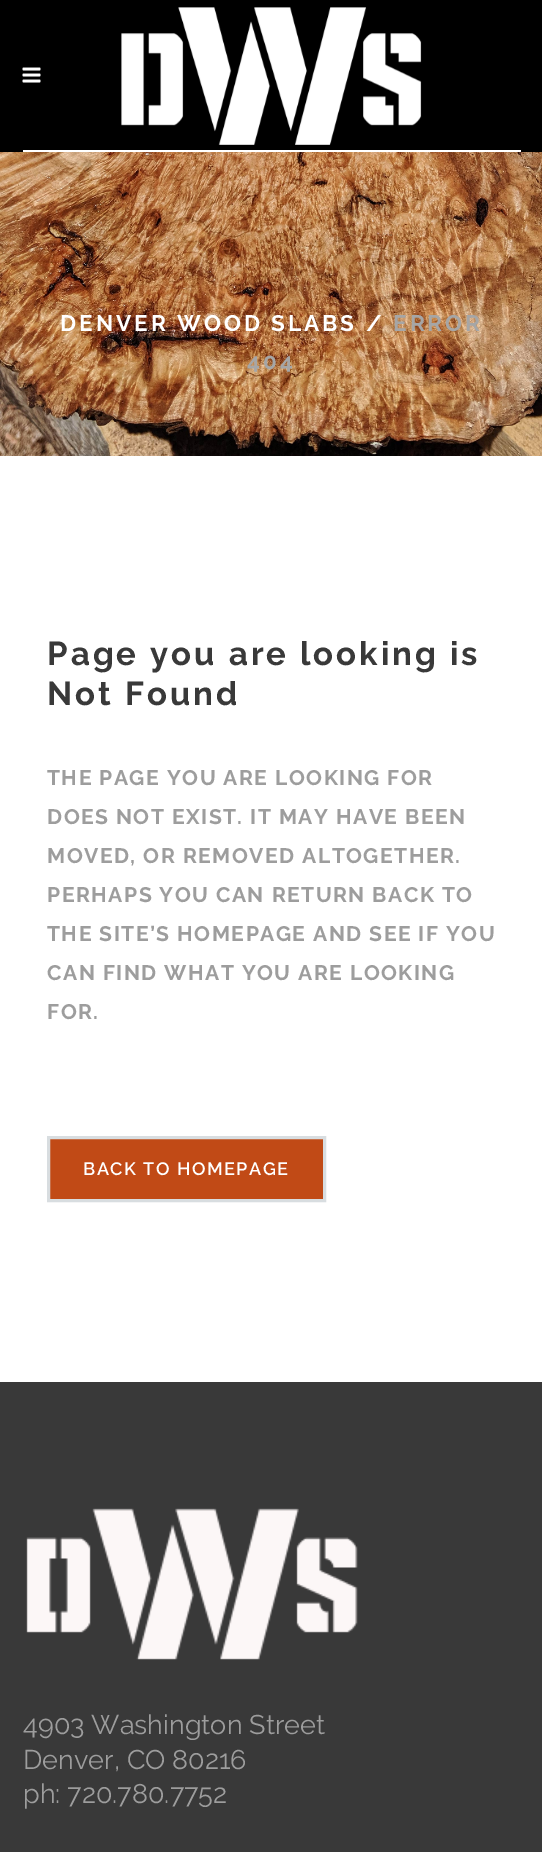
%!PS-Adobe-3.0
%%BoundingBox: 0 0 542 1852
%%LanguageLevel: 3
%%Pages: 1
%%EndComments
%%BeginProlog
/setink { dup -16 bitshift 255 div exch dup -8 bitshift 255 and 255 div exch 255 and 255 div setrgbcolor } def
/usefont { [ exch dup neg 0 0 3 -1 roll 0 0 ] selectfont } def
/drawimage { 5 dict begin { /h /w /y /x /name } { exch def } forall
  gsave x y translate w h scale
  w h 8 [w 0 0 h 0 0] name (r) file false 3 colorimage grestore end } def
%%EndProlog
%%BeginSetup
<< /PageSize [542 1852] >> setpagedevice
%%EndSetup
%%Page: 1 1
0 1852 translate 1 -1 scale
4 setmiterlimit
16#FFFFFF setink
0 0 542 1852 rectfill
16#000000 setink
0 0 542 152 rectfill
16#FFFFFF setink
23 150 498 2 rectfill
(img1.raw) 22 67 19 16 drawimage
(img2.raw) 121 7 301 138 drawimage
(img3.raw) 0 152 542 304 drawimage
/Raleway-Bold 22.5 usefont
60 331 moveto 3 0 (DENVER WOOD SLABS /) ashow
16#A6A6A6 setink
393 331 moveto 3 0 (ERROR) ashow
247 369 moveto 3 0 (404) ashow
/Raleway-Bold 33 usefont
16#393939 setink
47 665 moveto 3 0 (Page you are looking is) ashow
47 705 moveto 3 0 (Not Found) ashow
/Raleway-Bold 21 usefont
16#9D9D9D setink
47 785 moveto 1.5 0 (THE PAGE YOU ARE LOOKING FOR) ashow
47 824 moveto 1.5 0 (DOES NOT EXIST. IT MAY HAVE BEEN) ashow
47 863 moveto 1.5 0 (MOVED, OR REMOVED ALTOGETHER.) ashow
47 902 moveto 1.5 0 (PERHAPS YOU CAN RETURN BACK TO) ashow
47 941 moveto 1.5 0 (THE SITE’S HOMEPAGE AND SEE IF YOU) ashow
47 980 moveto 1.5 0 (CAN FIND WHAT YOU ARE LOOKING) ashow
47 1019 moveto 1.5 0 (FOR.) ashow
16#C14A16 setink
48.5 1137.5 moveto 324.5 1137.5 lineto 324.5 1200.5 lineto 48.5 1200.5 lineto closepath gsave fill grestore
16#D8DDE0 setink
3 setlinewidth
stroke
/Raleway-SemiBold 18 usefont
16#FFFFFF setink
83 1175 moveto 1.5 0 (BACK TO HOMEPAGE) ashow
16#393939 setink
0 1382 542 470 rectfill
(img4.raw) 26 1508 332 152 drawimage
/Raleway-Regular 27 usefont
16#9D9D9D setink
[
    [(4903 Washington Street) 23 1734]
    [(Denver, CO 80216) 23 1769]
    [(ph: 720.780.7752) 23 1803]
] { aload pop moveto show } forall
showpage
%%EOF
